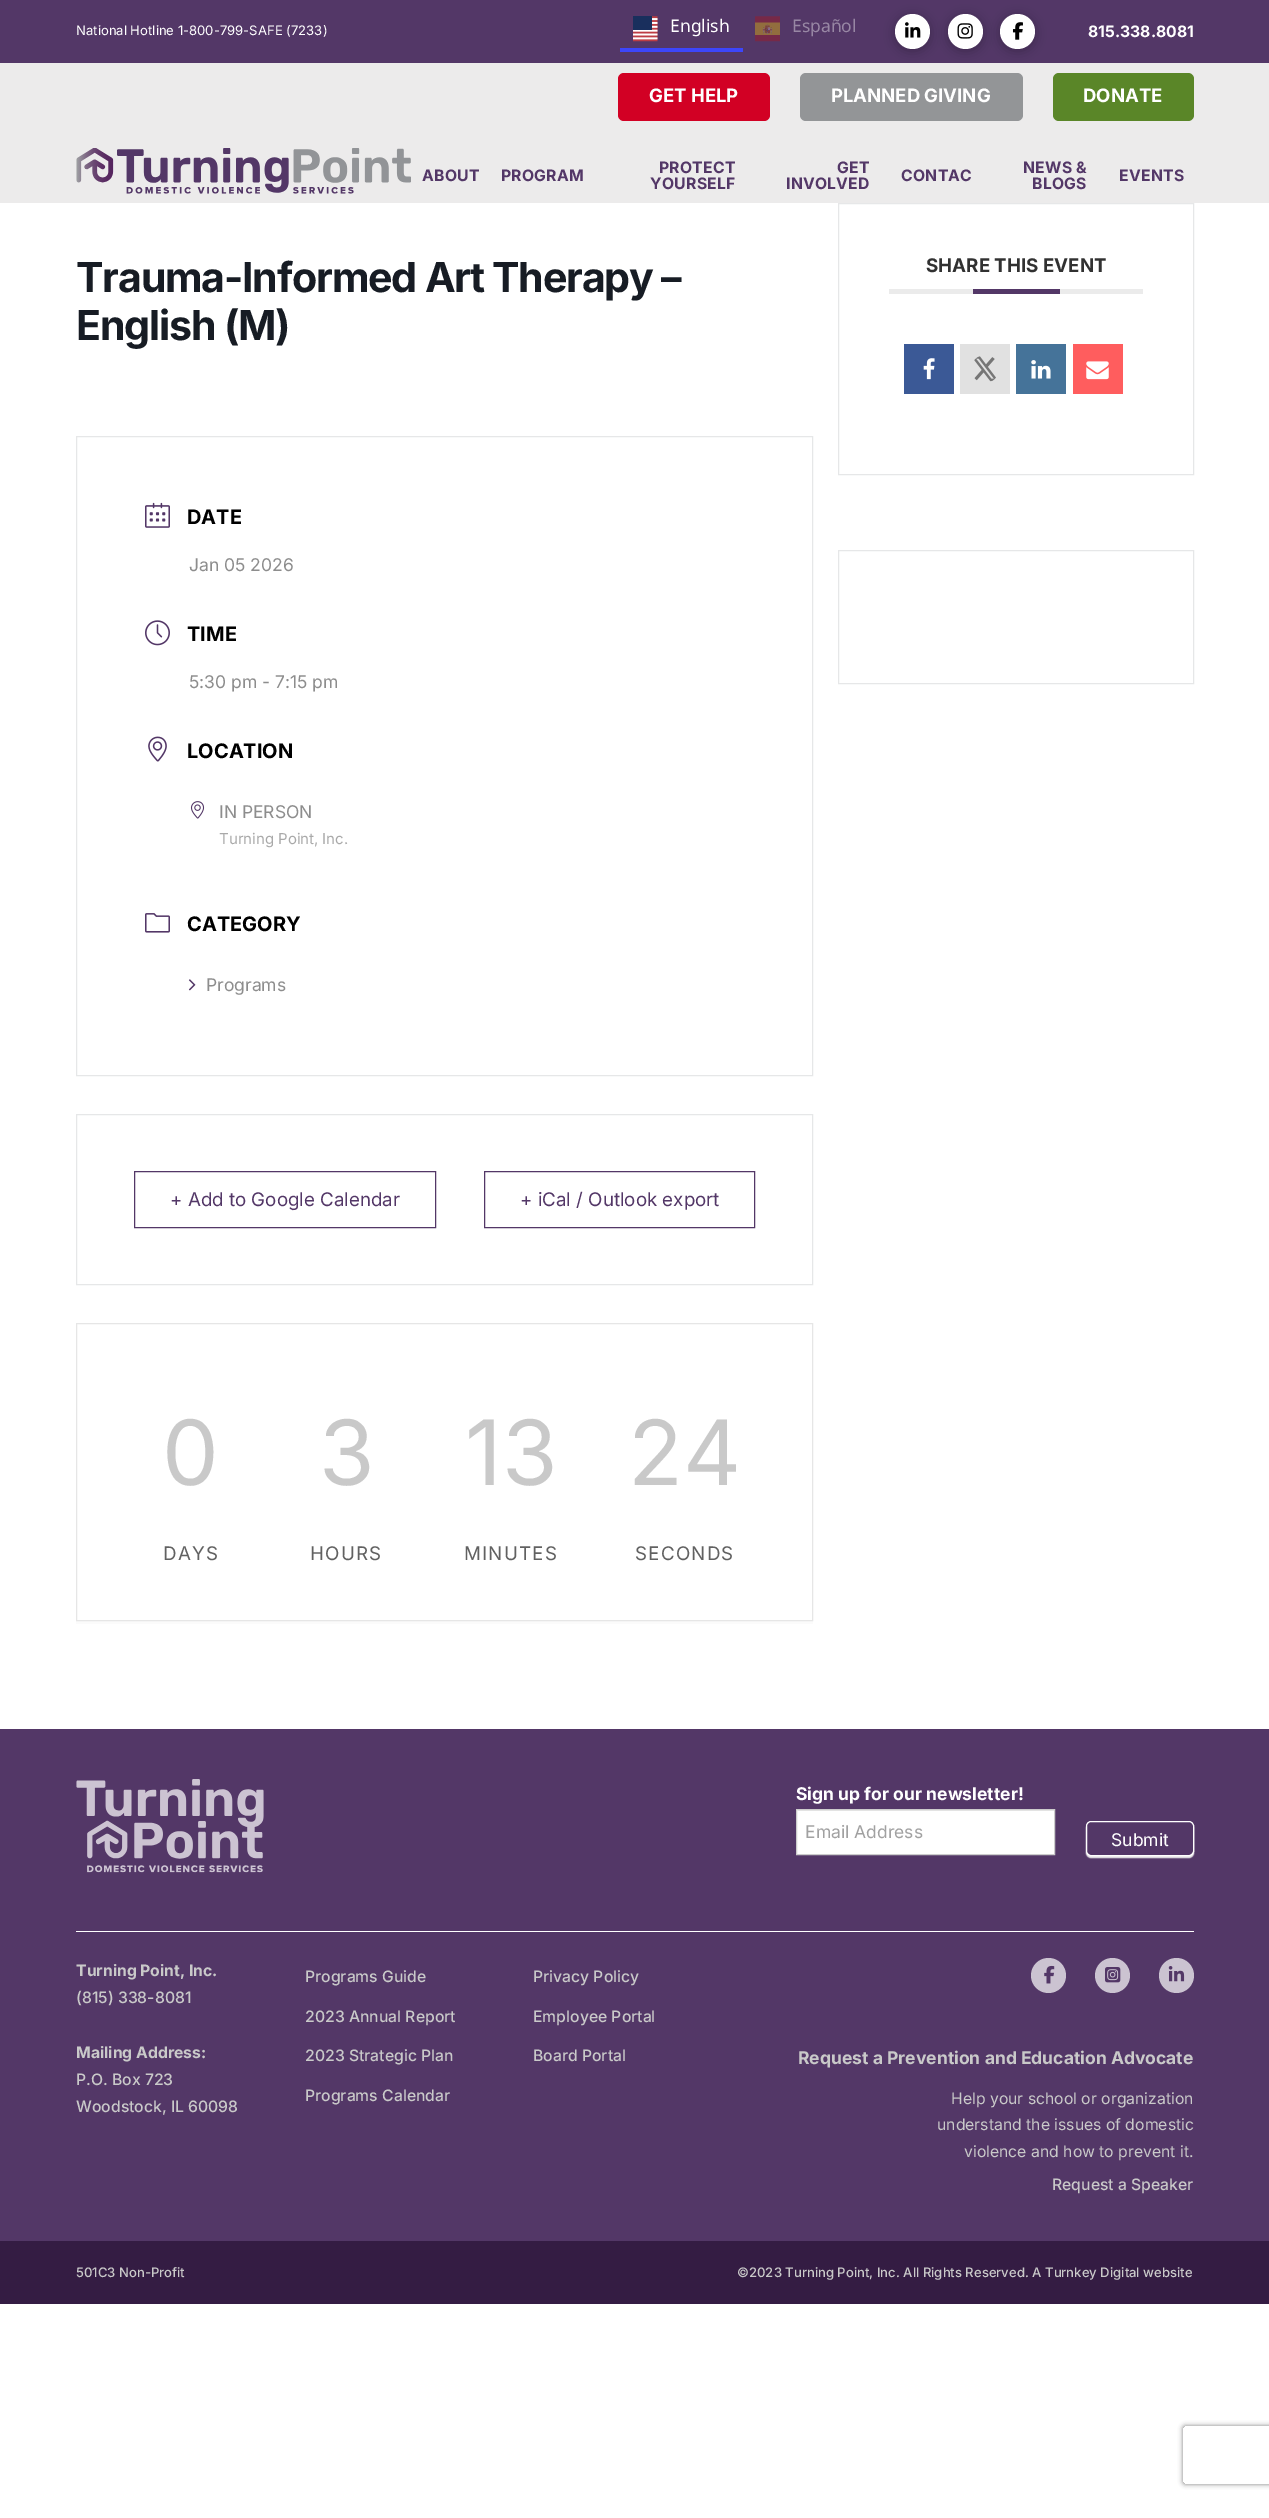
%!PS-Adobe-3.0
%%BoundingBox: 0 0 1269 2518
%%LanguageLevel: 3
%%Pages: 1
%%EndComments
%%BeginProlog
/setink { dup -16 bitshift 255 div exch dup -8 bitshift 255 and 255 div exch 255 and 255 div setrgbcolor } def
/usefont { [ exch dup neg 0 0 3 -1 roll 0 0 ] selectfont } def
/setalpha { dup .setfillconstantalpha .setstrokeconstantalpha } def
/disc { newpath 0 360 arc closepath } def
/rrect { 5 dict begin { /r /h /w /y /x } { exch def } forall
  x r add y moveto x w add y 2 copy h add r arct x w add y h add x 1 index r arct
  x y h add x y r arct x y 2 copy exch w add exch r arct closepath end } def
/softshadow { 12 dict begin { /a /b /q /h /w /y /x } { exch def } forall gsave /was 0 def
  9 -2 -9 { dup b mul 4 div /e exch def 1 sub .425 mul 2.718 exch exp 1 add a .99 .min exch div /now exch def
    1 1 now sub 1 was sub div sub setalpha /was now def
    w h .min e 2 mul add 0 gt { x e sub y e sub w e 2 mul add h e 2 mul add
      q e add b .6 mul add w h .min 2 div e add .min 0 .max rrect fill } if } for grestore end } def
/drawimage { 5 dict begin { /h /w /y /x /name } { exch def } forall
  gsave x y translate w h scale
  w h 8 [w 0 0 h 0 0] name (r) file false 3 colorimage grestore end } def
%%EndProlog
%%BeginSetup
<< /PageSize [1269 2518] /PageUsesTransparency true >> setpagedevice
%%EndSetup
%%Page: 1 1
0 .pushpdf14devicefilter
0 2518 translate 1 -1 scale
4 setmiterlimit
16#FFFFFF setink
0 0 1269 2518 rectfill
16#533767 setink
0 0 1269 63 rectfill
/Inter-Regular 13.1 usefont
16#FFFFFF setink
76 35 moveto (National Hotline 1-800-799-SAFE \(7233\)) show
(img1.raw) 633 16 25 26 drawimage
/NotoSans-Regular 17.5 usefont
670 32 moveto (English) show
16#3D46FB setink
620 48 123 4 rectfill
(img2.raw) 755 16 25 26 drawimage
16#9887A4 setink
792 32 moveto (Español) show
16#000000 setink
895 16 35 35 17.5 5.5 0.25 softshadow
16#FFFFFF setink
912.5 31.5 17.5 disc fill
(img3.raw) 905 22 16 16 drawimage
16#000000 setink
948 16 35 35 17.5 5.5 0.25 softshadow
16#FFFFFF setink
965.5 31.5 17.5 disc fill
(img4.raw) 957 23 16 16 drawimage
16#000000 setink
1000 16 35 35 17.5 5.5 0.25 softshadow
16#FFFFFF setink
1017.5 31.5 17.5 disc fill
(img5.raw) 1012 22 11 18 drawimage
/Inter-Bold 15.75 usefont
1088 37 moveto (815.338.8081) show
16#ECEBEB setink
0 63 1269 140 rectfill
(img6.raw) 76 148 335 46 drawimage
16#D20024 setink
618 73 152 48 6 rrect fill
/Inter-Bold 18.5 usefont
16#FFFFFF setink
649 102 moveto (GET HELP) show
16#939597 setink
800 73 223 48 6 rrect fill
16#FFFFFF setink
831 102 moveto (PLANNED GIVING) show
16#5A8628 setink
1053 73 141 48 6 rrect fill
16#FFFFFF setink
1083 102 moveto (DONATE) show
/Inter-Bold 15.75 usefont
16#533767 setink
422 181 moveto 0.25 0 (ABOUT) ashow
501 181 moveto 0.25 0 (PROGRAM) ashow
659 173 moveto 0.25 0 (PROTECT) ashow
650 189 moveto 0.25 0 (YOURSELF) ashow
837 173 moveto 0.25 0 (GET) ashow
786 189 moveto 0.25 0 (INVOLVED) ashow
901 181 moveto 0.25 0 (CONTAC) ashow
1023 173 moveto 0.25 0 (NEWS &) ashow
1032 189 moveto 0.25 0 (BLOGS) ashow
1119 181 moveto 0.25 0 (EVENTS) ashow
/Inter-Bold 41.25 usefont
16#171C24 setink
76 292 moveto -1.25 0 (Trauma-Informed Art Therapy –) ashow
76 340 moveto -1.25 0 (English \(M\)) ashow
16#E6E7E8 setink
76.5 436.5 736 639 rectstroke
(img7.raw) 145 502 25 26 drawimage
/Inter-Bold 20 usefont
16#000000 setink
187 524 moveto (DATE) show
/Inter-Regular 17.5 usefont
16#8D8D8D setink
189 571 moveto (Jan 05 2026) show
(img8.raw) 145 620 25 26 drawimage
/Inter-Bold 20 usefont
16#000000 setink
187 641 moveto (TIME) show
/Inter-Regular 17.5 usefont
16#8D8D8D setink
189 688 moveto (5:30 pm - 7:15 pm) show
(img9.raw) 148 736 19 26 drawimage
/Inter-Bold 20 usefont
16#000000 setink
187 758 moveto (LOCATION) show
(img10.raw) 190 801 15 18 drawimage
/Inter-Regular 17.5 usefont
16#8D8D8D setink
219 818 moveto (IN PERSON) show
/Inter-Regular 15 usefont
16#A9A9A9 setink
219 844 moveto (Turning Point, Inc.) show
(img11.raw) 145 913 25 20 drawimage
/Inter-Bold 20 usefont
16#000000 setink
187 931 moveto (CATEGORY) show
(img12.raw) 188 979 8 12 drawimage
/Inter-Regular 17.5 usefont
16#8D8D8D setink
206 991 moveto (Programs) show
16#E6E7E8 setink
76.5 1114.5 736 170 rectstroke
16#533767 setink
134.5 1171.5 301 56 rectstroke
/Inter-Regular 18.75 usefont
170 1206 moveto (+ Add to Google Calendar) show
484.5 1171.5 270 56 rectstroke
520 1206 moveto (+ iCal / Outlook export) show
16#FBFBFB setink
76 1325 moveto 76 1624 lineto 813 1624 lineto 813 1325 lineto 812 1325 lineto 812 1621 lineto 76 1621 lineto closepath fill
16#E6E6E6 setink
76.5 1323.5 736 297 rectstroke
/Inter-Regular 90 usefont
16#C9C9C9 setink
162 1485 moveto (0) show
/Inter-Regular 18.75 usefont
16#616161 setink
163 1560 moveto 1.25 0 (DAYS) ashow
/Inter-Regular 90 usefont
16#C9C9C9 setink
319 1485 moveto (3) show
/Inter-Regular 18.75 usefont
16#616161 setink
310 1560 moveto 1.25 0 (HOURS) ashow
/Inter-Regular 90 usefont
16#C9C9C9 setink
465 1485 moveto (13) show
/Inter-Regular 18.75 usefont
16#616161 setink
464 1560 moveto 1.25 0 (MINUTES) ashow
/Inter-Regular 90 usefont
16#C9C9C9 setink
628 1485 moveto (24) show
/Inter-Regular 18.75 usefont
16#616161 setink
635 1560 moveto 1.25 0 (SECONDS) ashow
16#E6E7E8 setink
838.5 203.5 355 271 rectstroke
16#EBEBEB setink
889 289 254 5 rectfill
/Inter-Bold 18.75 usefont
16#313131 setink
926 272 moveto (SHARE THIS EVENT) show
16#533767 setink
973 289 87 5 rectfill
16#3B5996 setink
904 344 50 50 rectfill
(img13.raw) 923 358 12 22 drawimage
16#E1E1E1 setink
960 344 50 50 rectfill
(img14.raw) 974 356 22 26 drawimage
16#457399 setink
1016 344 50 50 rectfill
(img15.raw) 1031 360 20 19 drawimage
16#FF5D5E setink
1073 344 50 50 rectfill
(img16.raw) 1086 361 23 19 drawimage
16#E6E7E8 setink
838.5 550.5 355 133 rectstroke
16#533767 setink
0 1729 1269 512 rectfill
16#FFFFFF setink
76 1931 1118 1 rectfill
(img17.raw) 76 1779 188 94 drawimage
/Inter-Bold 17.5 usefont
796 1800 moveto (Sign up for our newsletter!) show
797 1810 257 44 rectfill
16#ECECEC setink
798 1810 256 1 rectfill
16#CCCCCC setink
796.5 1809.5 258 45 rectstroke
/Inter-Regular 17.5 usefont
16#A1A1A1 setink
805 1838 moveto (Email Address) show
gsave
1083 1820 moveto 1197 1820 lineto 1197 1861 lineto 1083 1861 lineto closepath 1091 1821 moveto 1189 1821 lineto 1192 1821 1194 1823 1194 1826 curveto 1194 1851 lineto 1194 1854 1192 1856 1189 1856 curveto 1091 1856 lineto 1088 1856 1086 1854 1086 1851 curveto 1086 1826 lineto 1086 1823 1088 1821 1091 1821 curveto closepath eoclip newpath
16#EEEEEE setink
1086 1823 108 35 5 0.5 1 softshadow
grestore
16#FFFFFF setink
1086.5 1821.5 107 34 4.5 rrect stroke
1111 1846 moveto (Submit) show
gsave
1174 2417 moveto 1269 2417 lineto 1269 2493 lineto 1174 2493 lineto closepath 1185 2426 moveto 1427 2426 lineto 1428 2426 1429 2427 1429 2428 curveto 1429 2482 lineto 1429 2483 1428 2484 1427 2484 curveto 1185 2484 lineto 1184 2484 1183 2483 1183 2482 curveto 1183 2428 lineto 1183 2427 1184 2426 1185 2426 curveto closepath eoclip newpath
16#808080 setink
1183 2426 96 58 2 2.5 1 softshadow
grestore
/Inter-Bold 15.75 usefont
16#C9C9C9 setink
76 1976 moveto (Turning Point, Inc.) show
/Inter-Medium 15.75 usefont
76 2003 moveto (\(815\) 338-8081) show
/Inter-Bold 15.75 usefont
76 2058 moveto (Mailing Address:) show
/Inter-Medium 15.75 usefont
[
    [(P.O. Box 723) 76 2085]
    [(Woodstock, IL 60098) 76 2112]
    [(Programs Guide) 305 1982]
    [(2023 Annual Report) 305 2022]
    [(2023 Strategic Plan) 305 2061]
    [(Programs Calendar) 305 2101]
    [(Privacy Policy) 533 1982]
    [(Employee Portal) 533 2022]
    [(Board Portal) 533 2061]
] { aload pop moveto show } forall
16#CBC3D1 setink
1048.5 1975.5 17.5 disc fill
(img18.raw) 1044 1965 11 19 drawimage
1112.5 1975.5 17.5 disc fill
(img19.raw) 1105 1967 16 16 drawimage
1176.5 1975.5 17.5 disc fill
(img20.raw) 1168 1966 17 16 drawimage
/Inter-Bold 17.5 usefont
16#C9C9C9 setink
798 2064 moveto (Request a Prevention and Education Advocate) show
/Inter-Regular 15.75 usefont
[
    [(Help your school or organization) 951 2104]
    [(understand the issues of domestic) 937 2130]
    [(violence and how to prevent it.) 964 2157]
] { aload pop moveto show } forall
/Inter-Medium 15.75 usefont
1052 2190 moveto (Request a Speaker) show
16#341C43 setink
0 2241 1269 63 rectfill
/Inter-Medium 13.1 usefont
16#C9C9C9 setink
76 2277 moveto (501C3 Non-Profit) show
737 2277 moveto (©2023 Turning Point, Inc. All Rights Reserved. A Turnkey Digital website) show
.poppdf14devicefilter showpage
%%EOF
